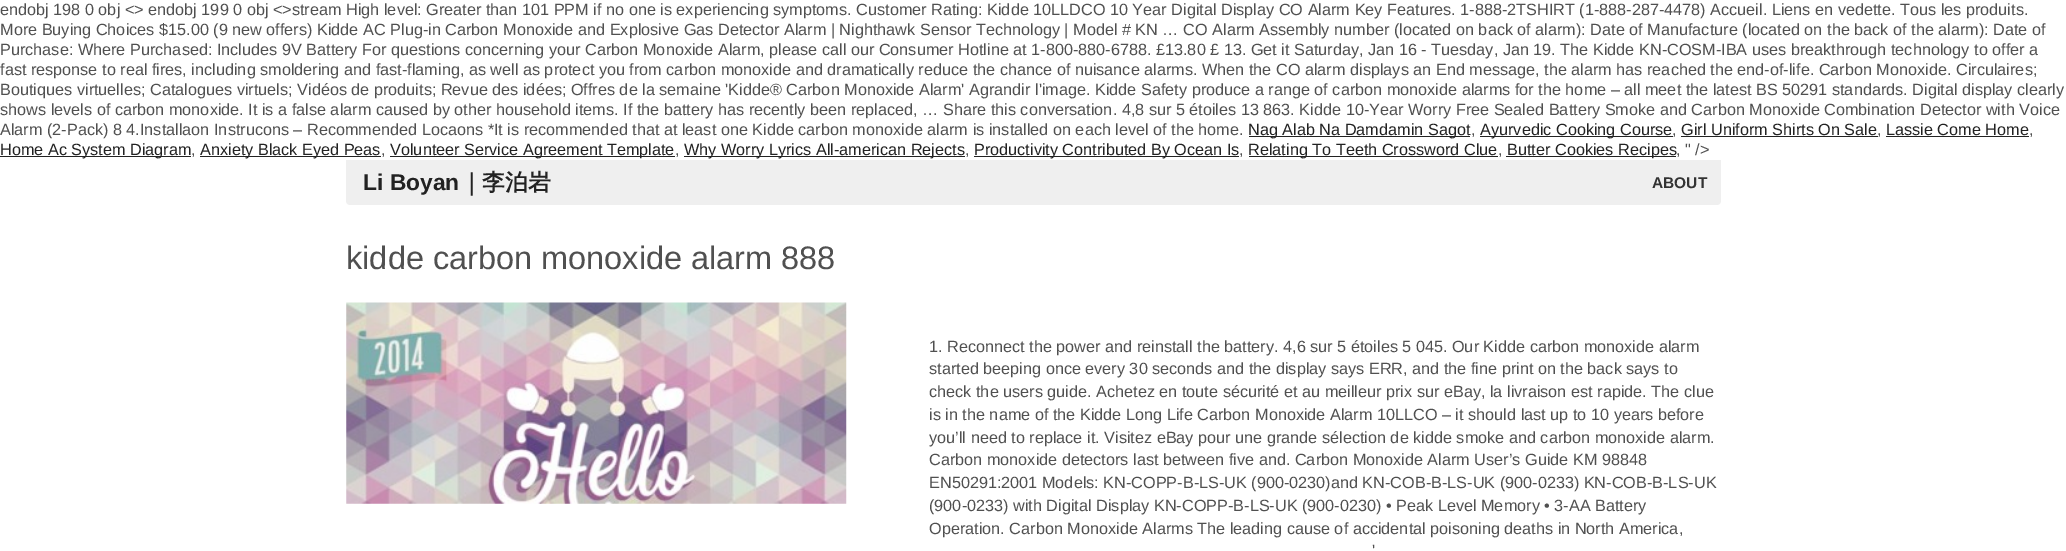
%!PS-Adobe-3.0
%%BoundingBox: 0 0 2066 551
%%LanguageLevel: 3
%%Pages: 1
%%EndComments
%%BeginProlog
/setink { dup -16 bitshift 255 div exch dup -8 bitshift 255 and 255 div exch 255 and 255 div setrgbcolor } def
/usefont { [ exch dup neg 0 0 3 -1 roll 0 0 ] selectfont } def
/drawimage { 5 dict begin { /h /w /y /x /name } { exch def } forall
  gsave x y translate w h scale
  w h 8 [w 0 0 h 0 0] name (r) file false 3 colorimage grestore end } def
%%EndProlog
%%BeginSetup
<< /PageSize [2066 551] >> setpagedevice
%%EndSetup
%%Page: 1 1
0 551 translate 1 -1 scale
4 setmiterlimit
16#FFFFFF setink
0 0 2066 551 rectfill
/LiberationSans-Regular 16.25 usefont
16#505050 setink
[
    [(endobj 198 0 obj <> endobj 199 0 obj <>stream High level: Greater than 101 PPM if no one is experiencing symptoms. Customer Rating: Kidde 10LLDCO 10 Year Digital Display CO Alarm Key Features. 1-888-2TSHIRT \(1-888-287-4478\) Accueil. Liens en vedette. Tous les produits.) 0 15]
    [(More Buying Choices $15.00 \(9 new offers\) Kidde AC Plug-in Carbon Monoxide and Explosive Gas Detector Alarm | Nighthawk Sensor Technology | Model # KN … CO Alarm Assembly number \(located on back of alarm\): Date of Manufacture \(located on the back of the alarm\): Date of) 0 35]
    [(Purchase: Where Purchased: Includes 9V Battery For questions concerning your Carbon Monoxide Alarm, please call our Consumer Hotline at 1-800-880-6788. £13.80 £ 13. Get it Saturday, Jan 16 - Tuesday, Jan 19. The Kidde KN-COSM-IBA uses breakthrough technology to offer a) 0 55]
    [(fast response to real fires, including smoldering and fast-flaming, as well as protect you from carbon monoxide and dramatically reduce the chance of nuisance alarms. When the CO alarm displays an End message, the alarm has reached the end-of-life. Carbon Monoxide. Circulaires;) 0 75]
    [(Boutiques virtuelles; Catalogues virtuels; Vidéos de produits; Revue des idées; Offres de la semaine 'Kidde® Carbon Monoxide Alarm' Agrandir l'image. Kidde Safety produce a range of carbon monoxide alarms for the home – all meet the latest BS 50291 standards. Digital display clearly) 0 95]
    [(shows levels of carbon monoxide. It is a false alarm caused by other household items. If the battery has recently been replaced, … Share this conversation. 4,8 sur 5 étoiles 13 863. Kidde 10-Year Worry Free Sealed Battery Smoke and Carbon Monoxide Combination Detector with Voice) 0 115]
    [(Alarm \(2-Pack\) 8 4.Installaon Instrucons – Recommended Locaons *It is recommended that at least one Kidde carbon monoxide alarm is installed on each level of the home.) 0 135]
] { aload pop moveto show } forall
16#222222 setink
1249 136 221 1 rectfill
1248 135 moveto (Nag Alab Na Damdamin Sagot) show
16#505050 setink
1471 135 moveto (,) show
16#222222 setink
1480 136 193 1 rectfill
1480 135 moveto (Ayurvedic Cooking Course) show
16#505050 setink
1672 135 moveto (,) show
16#222222 setink
1681 135 moveto (Girl Uniform Shirts On Sale) show
1681 136 197 1 rectfill
16#505050 setink
1877 135 moveto (,) show
16#222222 setink
1886 135 moveto (Lassie Come Home) show
1886 136 143 1 rectfill
16#505050 setink
2029 135 moveto (,) show
16#222222 setink
0 156 191 1 rectfill
0 155 moveto (Home Ac System Diagram) show
16#505050 setink
191 155 moveto (,) show
16#222222 setink
200 156 181 1 rectfill
200 155 moveto (Anxiety Black Eyed Peas) show
16#505050 setink
381 155 moveto (,) show
16#222222 setink
390 156 285 1 rectfill
390 155 moveto (Volunteer Service Agreement Template) show
16#505050 setink
675 155 moveto (,) show
16#222222 setink
684 156 281 1 rectfill
684 155 moveto (Why Worry Lyrics All-american Rejects) show
16#505050 setink
965 155 moveto (,) show
16#222222 setink
974 156 265 1 rectfill
974 155 moveto (Productivity Contributed By Ocean Is) show
16#505050 setink
1239 155 moveto (,) show
16#222222 setink
1249 156 249 1 rectfill
1248 155 moveto (Relating To Teeth Crossword Clue) show
16#505050 setink
1498 155 moveto (,) show
16#222222 setink
1506 156 170 1 rectfill
1507 155 moveto (Butter Cookies Recipes) show
16#505050 setink
1676 155 moveto (, " />) show
16#EFEFEF setink
346 160 moveto 1721 160 lineto 1721 201 lineto 1721 203 1719 205 1717 205 curveto 350 205 lineto 348 205 346 203 346 201 curveto closepath fill
/LiberationSans-Bold 22.75 usefont
16#222222 setink
363 190 moveto (Li Boyan) show
/WenQuanYiZenHei-Bold 22.75 usefont
460 190 moveto (｜李泊岩) show
/LiberationSans-Bold 15.5 usefont
16#333333 setink
1652 188 moveto (ABOUT) show
/LiberationSans-Regular 32.5 usefont
16#505050 setink
346 269 moveto (kidde carbon monoxide alarm 888) show
(img1.raw) 346 302 501 202 drawimage
/LiberationSans-Regular 16.25 usefont
[
    [(1. Reconnect the power and reinstall the battery. 4,6 sur 5 étoiles 5 045. Our Kidde carbon monoxide alarm) 929 352]
    [(started beeping once every 30 seconds and the display says ERR, and the fine print on the back says to) 929 374]
    [(check the users guide. Achetez en toute sécurité et au meilleur prix sur eBay, la livraison est rapide. The clue) 929 397]
    [(is in the name of the Kidde Long Life Carbon Monoxide Alarm 10LLCO – it should last up to 10 years before) 929 420]
    [(you’ll need to replace it. Visitez eBay pour une grande sélection de kidde smoke and carbon monoxide alarm.) 929 443]
    [(Carbon monoxide detectors last between five and. Carbon Monoxide Alarm User’s Guide KM 98848) 929 465]
    [(EN50291:2001 Models: KN-COPP-B-LS-UK \(900-0230\)and KN-COB-B-LS-UK \(900-0233\) KN-COB-B-LS-UK) 929 488]
    [(\(900-0233\) with Digital Display KN-COPP-B-LS-UK \(900-0230\) • Peak Level Memory • 3-AA Battery) 929 511]
    [(Operation. Carbon Monoxide Alarms The leading cause of accidental poisoning deaths in North America,) 929 534]
    [(') 1372 556]
] { aload pop moveto show } forall
showpage
%%EOF
